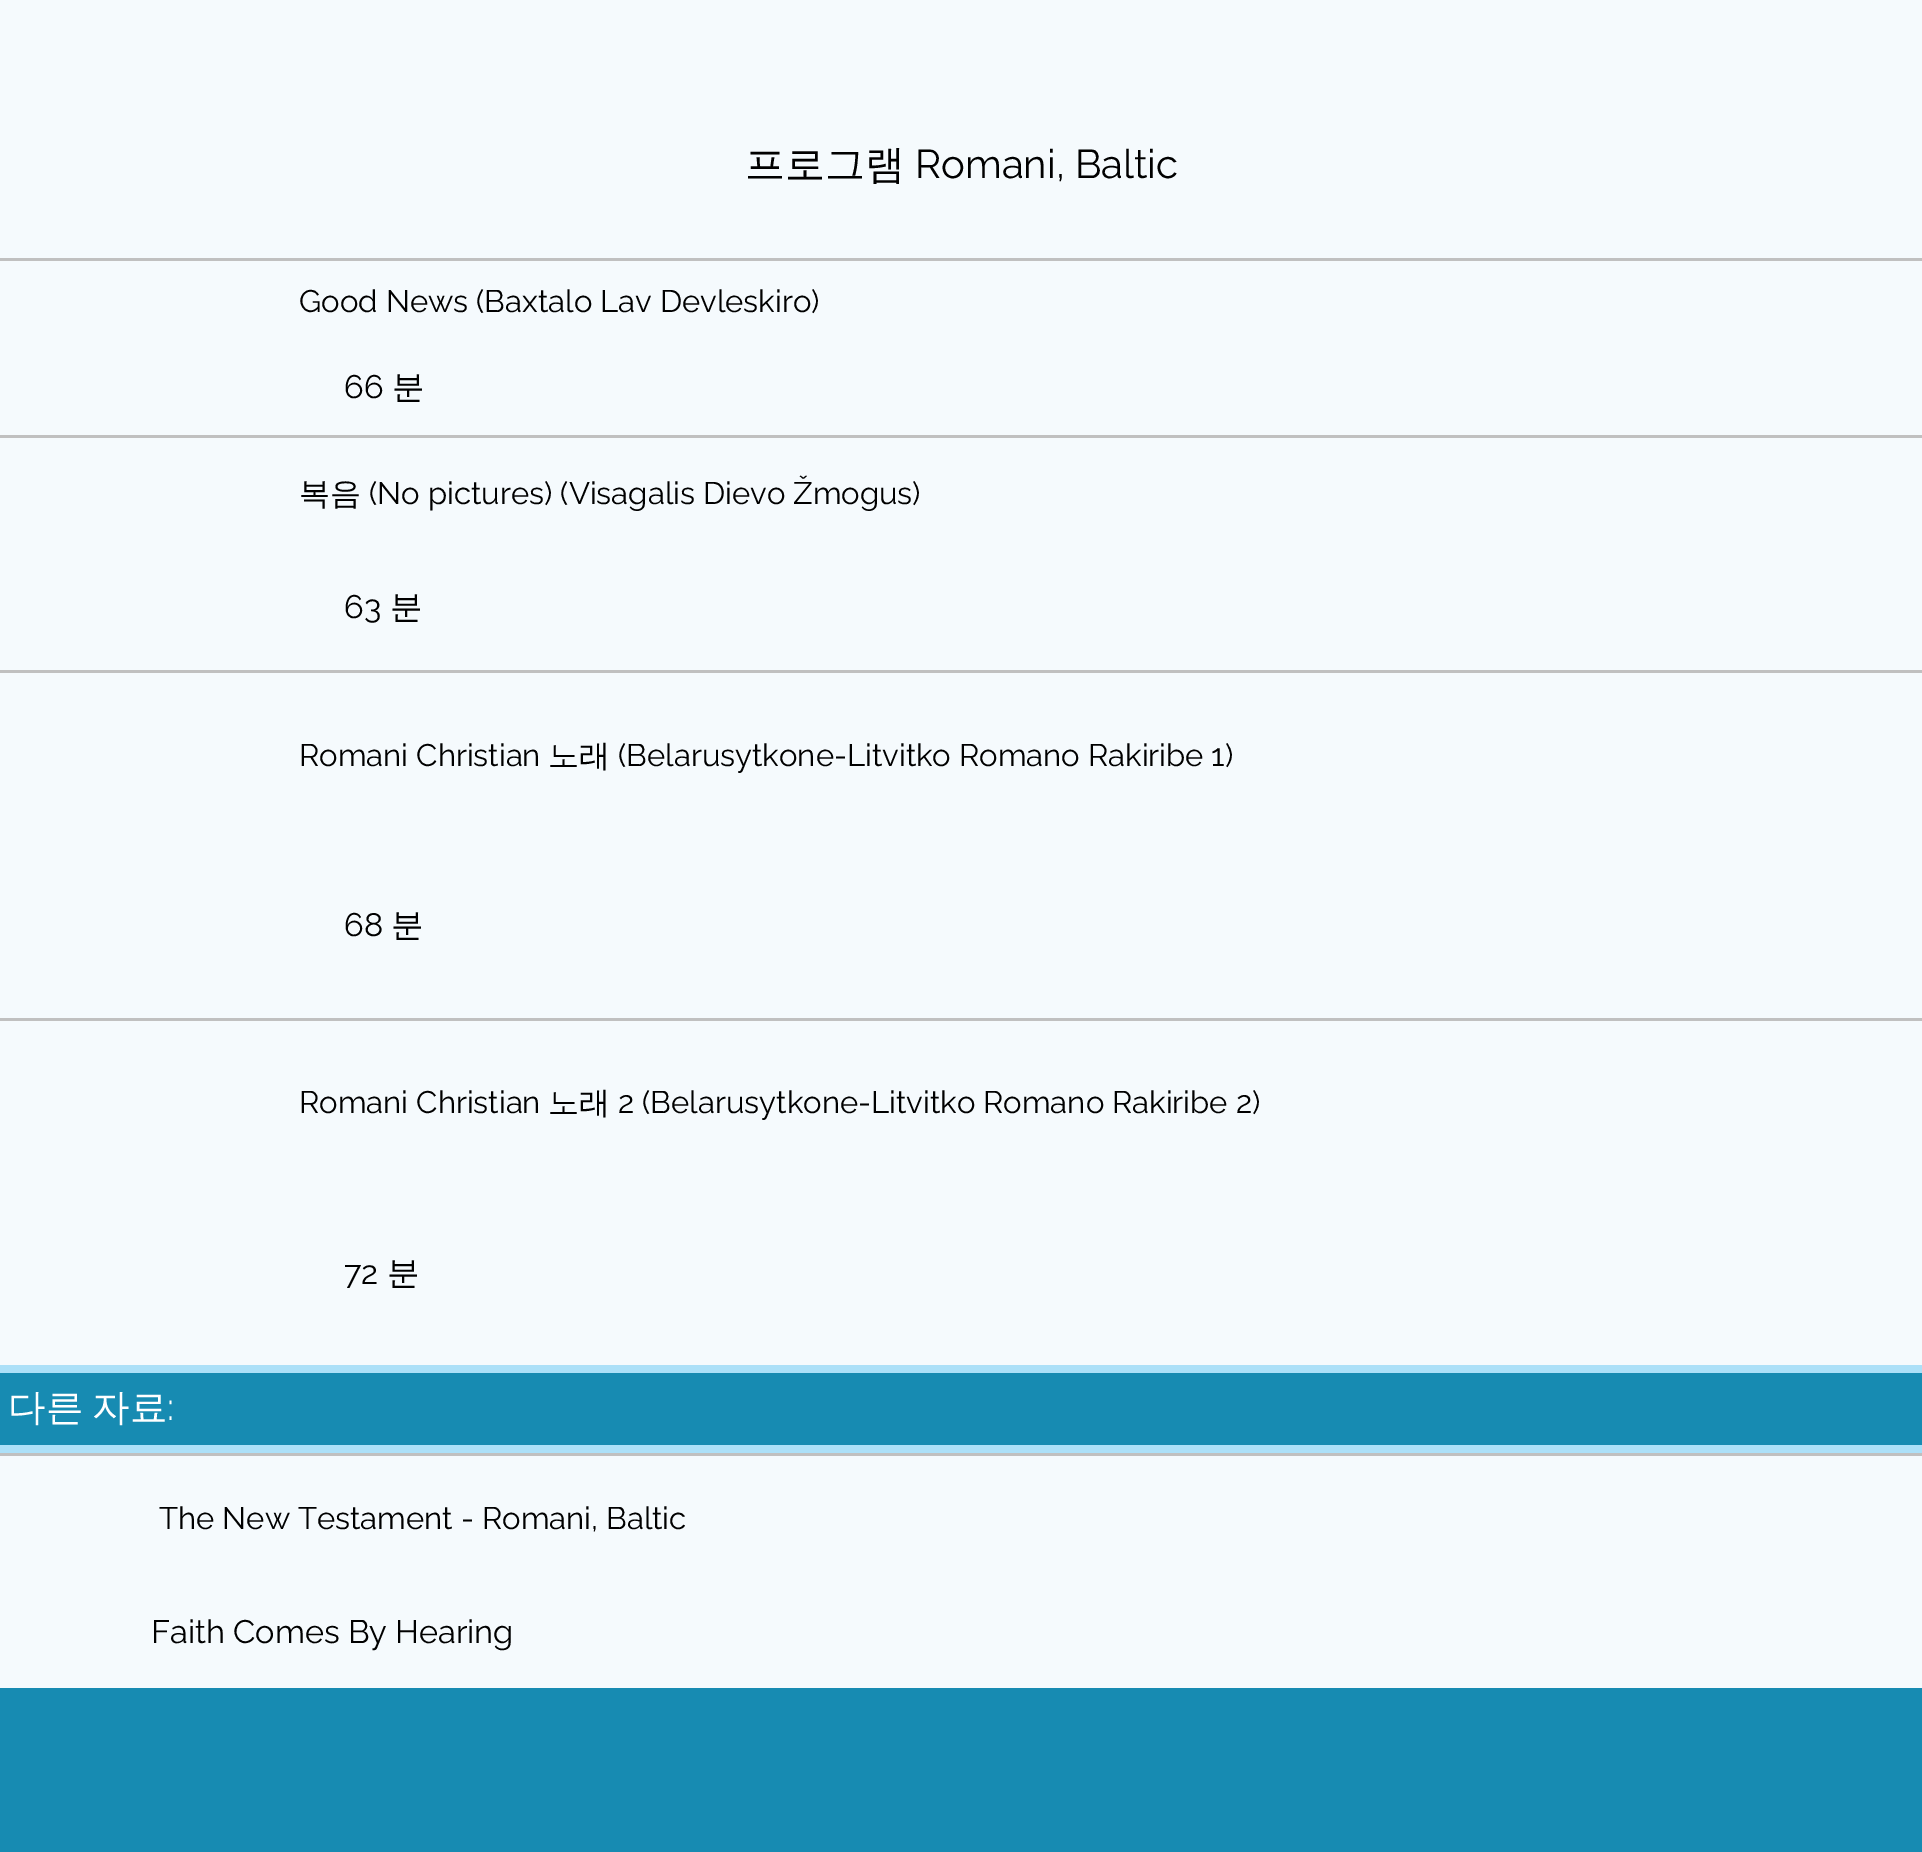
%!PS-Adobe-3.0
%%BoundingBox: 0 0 1922 1852
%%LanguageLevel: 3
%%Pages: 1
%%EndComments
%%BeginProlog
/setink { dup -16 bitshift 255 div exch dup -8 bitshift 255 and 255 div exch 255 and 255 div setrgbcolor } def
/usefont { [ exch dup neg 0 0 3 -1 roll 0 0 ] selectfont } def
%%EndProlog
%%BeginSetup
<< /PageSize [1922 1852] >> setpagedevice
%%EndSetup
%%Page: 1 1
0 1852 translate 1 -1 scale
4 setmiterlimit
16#178BB2 setink
0 0 1922 1852 rectfill
16#F5FAFD setink
0 0 1922 1688 rectfill
/WenQuanYiZenHei-Medium 40 usefont
16#000000 setink
745 178 moveto (프로그램) show
/Raleway-Regular 40 usefont
915 178 moveto (Romani, Baltic) show
16#C0C0C0 setink
0 258 1922 3 rectfill
/Raleway-Regular 31.1 usefont
16#000000 setink
299 312 moveto (Good News \(Baxtalo Lav Devleskiro\)) show
/Raleway-Regular 32.5 usefont
344 398 moveto (66) show
/WenQuanYiZenHei-Medium 32.5 usefont
392 398 moveto (분) show
16#C0C0C0 setink
0 435 1922 3 rectfill
/WenQuanYiZenHei-Medium 31.1 usefont
16#000000 setink
299 504 moveto (복음) show
/Raleway-Regular 31.1 usefont
369 504 moveto (\(No pictures\) \(Visagalis Dievo Žmogus\)) show
/Raleway-Regular 32.5 usefont
344 618 moveto (63) show
/WenQuanYiZenHei-Medium 32.5 usefont
390 618 moveto (분) show
16#C0C0C0 setink
0 670 1922 3 rectfill
/Raleway-Regular 31.1 usefont
16#000000 setink
299 766 moveto (Romani Christian) show
/WenQuanYiZenHei-Medium 31.1 usefont
548 766 moveto (노래) show
/Raleway-Regular 31.1 usefont
618 766 moveto (\(Belarusytkone-Litvitko Romano Rakiribe 1\)) show
/Raleway-Regular 32.5 usefont
344 936 moveto (68) show
/WenQuanYiZenHei-Medium 32.5 usefont
391 936 moveto (분) show
16#C0C0C0 setink
0 1018 1922 3 rectfill
/Raleway-Regular 31.1 usefont
16#000000 setink
299 1113 moveto (Romani Christian) show
/WenQuanYiZenHei-Medium 31.1 usefont
548 1113 moveto (노래) show
/Raleway-Regular 31.1 usefont
618 1113 moveto (2 \(Belarusytkone-Litvitko Romano Rakiribe 2\)) show
/Raleway-Regular 32.5 usefont
344 1284 moveto (72) show
/WenQuanYiZenHei-Medium 32.5 usefont
387 1284 moveto (분) show
16#ACE0F8 setink
0 1365 1922 8 rectfill
16#178BB2 setink
0 1373 1922 72 rectfill
/WenQuanYiZenHei-Medium 37.5 usefont
16#FFFFFF setink
8 1420 moveto -2 0 32 (다른 자료) widthshow
/Raleway-Regular 37.5 usefont
167 1420 moveto (:) show
16#ACE0F8 setink
0 1445 1922 8 rectfill
16#C0C0C0 setink
0 1453 1922 3 rectfill
/Raleway-Regular 31.1 usefont
16#000000 setink
159 1529 moveto (The New Testament - Romani, Baltic) show
/Raleway-Regular 32.5 usefont
151 1643 moveto (Faith Comes By Hearing) show
showpage
%%EOF
